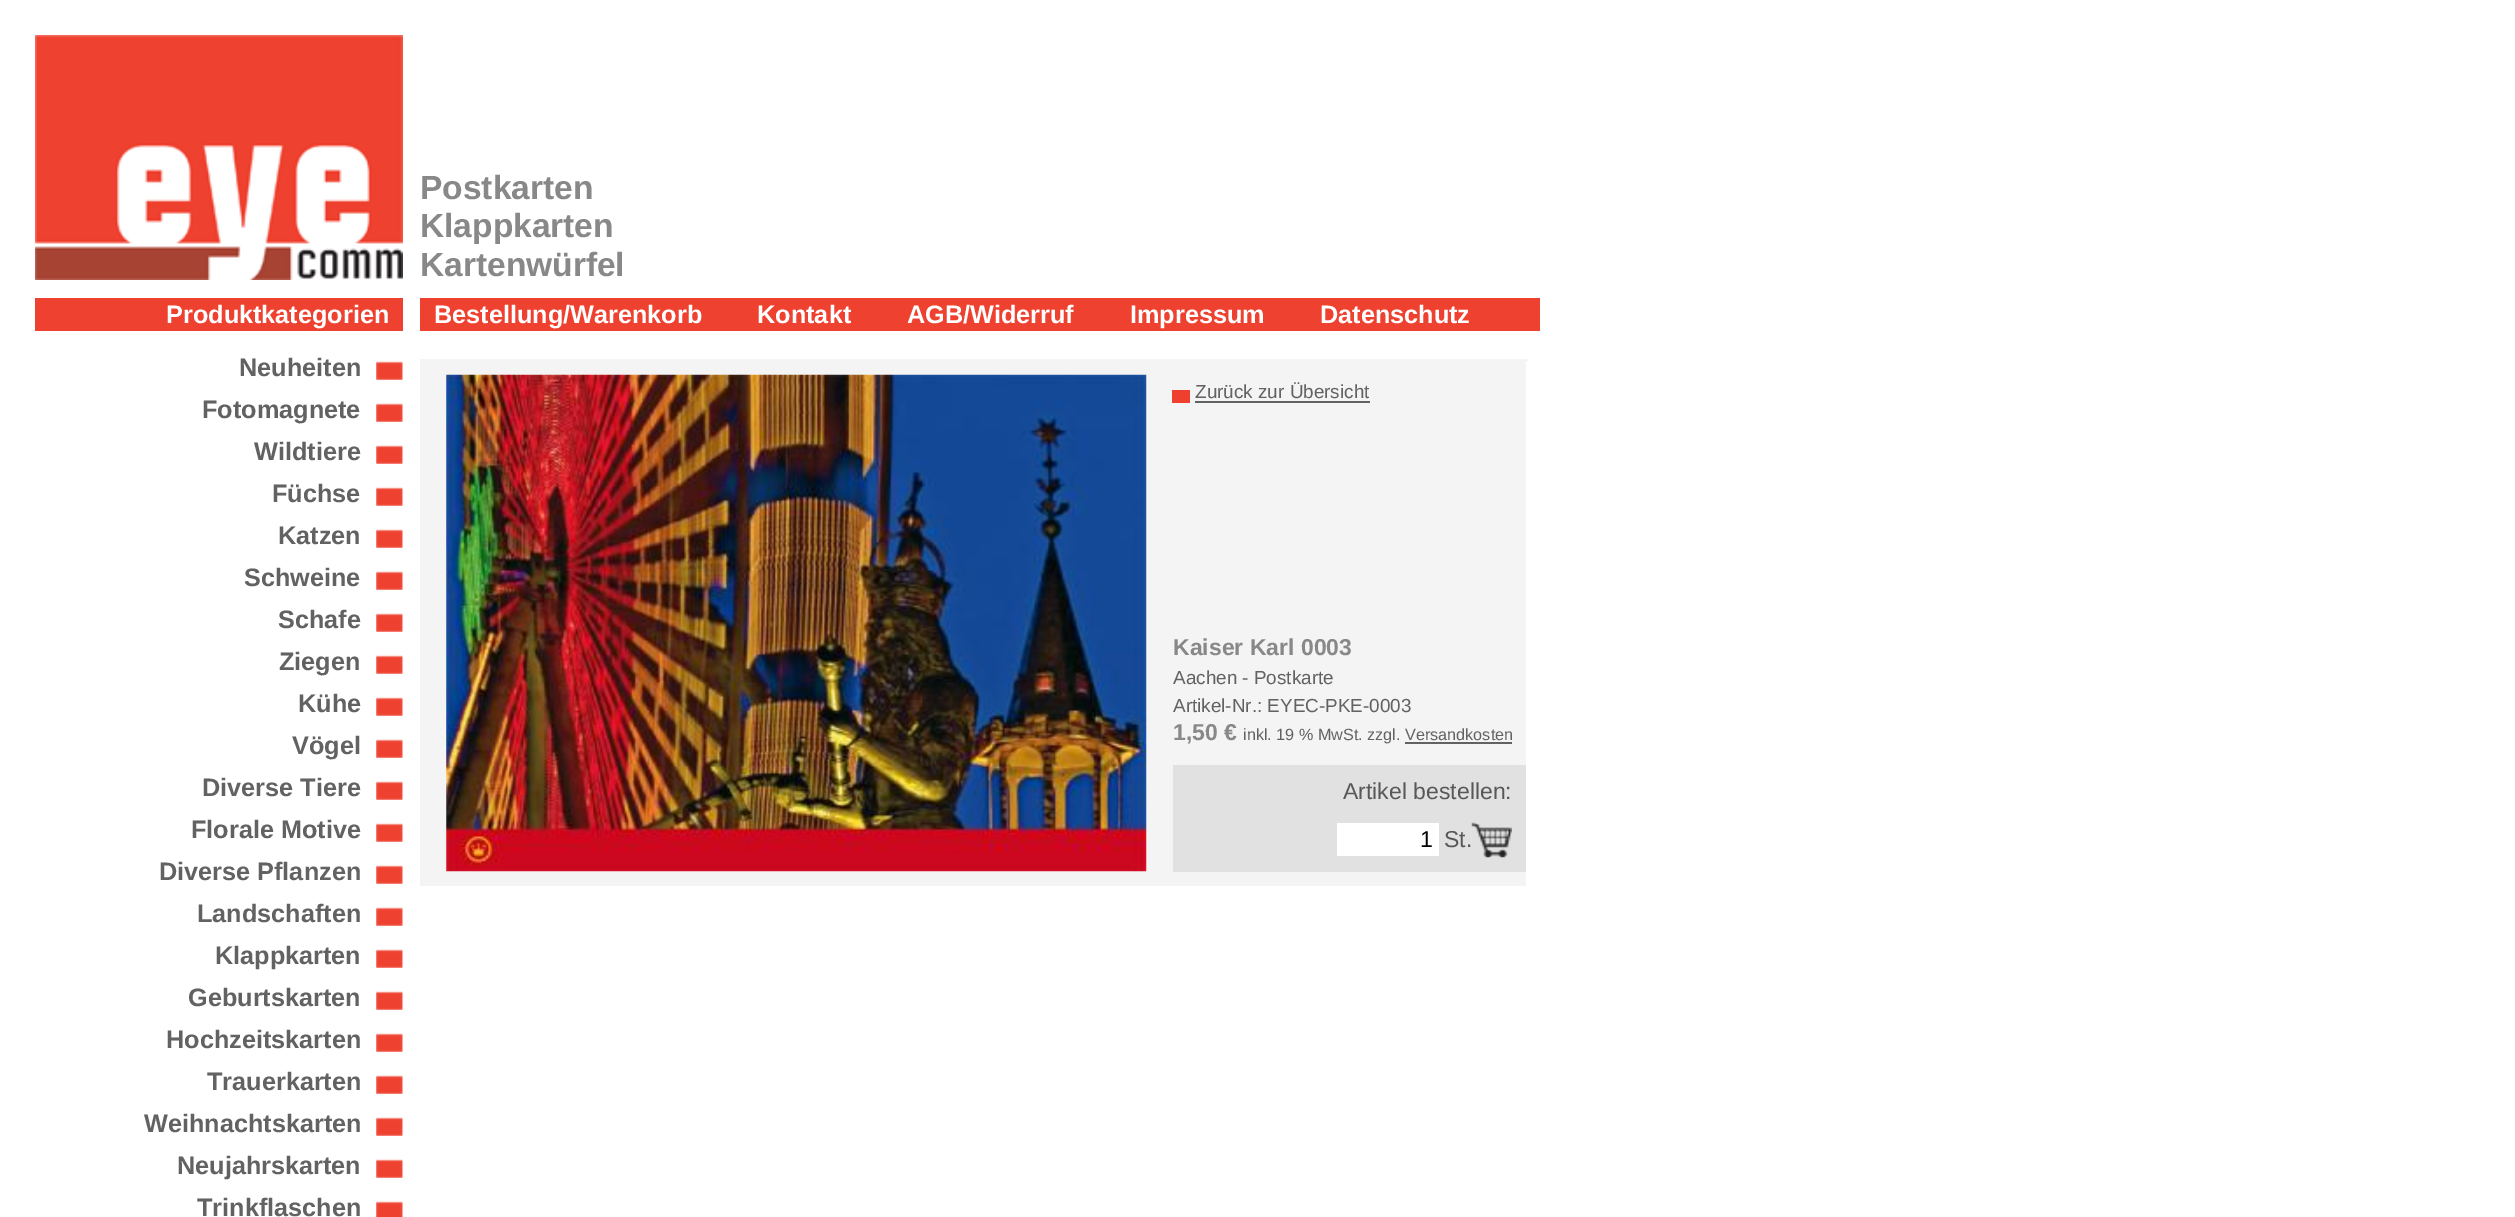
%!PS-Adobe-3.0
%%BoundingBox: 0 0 2515 1217
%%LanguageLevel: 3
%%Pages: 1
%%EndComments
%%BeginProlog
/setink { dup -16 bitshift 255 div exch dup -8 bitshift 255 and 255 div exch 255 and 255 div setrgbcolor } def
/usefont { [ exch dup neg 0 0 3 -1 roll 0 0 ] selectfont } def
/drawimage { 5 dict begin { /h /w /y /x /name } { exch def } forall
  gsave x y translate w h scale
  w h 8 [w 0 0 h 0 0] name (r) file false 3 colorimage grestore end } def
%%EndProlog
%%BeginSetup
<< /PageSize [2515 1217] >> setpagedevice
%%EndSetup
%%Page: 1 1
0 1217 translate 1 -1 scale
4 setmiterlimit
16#FFFFFF setink
0 0 2515 1217 rectfill
(img1.raw) 35 35 368 245 drawimage
/LiberationSans-Bold 33.5 usefont
16#888888 setink
[
    [(Postkarten) 420 199]
    [(Klappkarten) 420 237]
    [(Kartenwürfel) 420 276]
] { aload pop moveto show } forall
16#EF4130 setink
35 298 368 33 rectfill
/LiberationSans-Bold 25.25 usefont
16#FFFFFF setink
166 323 moveto (Produktkategorien) show
(img2.raw) 376 361 27 19 drawimage
16#626262 setink
239 376 moveto (Neuheiten) show
(img2.raw) 376 403 27 19 drawimage
202 418 moveto (Fotomagnete) show
(img2.raw) 376 445 27 19 drawimage
254 460 moveto (Wildtiere) show
(img2.raw) 376 487 27 19 drawimage
272 502 moveto (Füchse) show
(img2.raw) 376 529 27 19 drawimage
278 544 moveto (Katzen) show
(img2.raw) 376 571 27 19 drawimage
244 586 moveto (Schweine) show
(img2.raw) 376 613 27 19 drawimage
278 628 moveto (Schafe) show
(img2.raw) 376 655 27 19 drawimage
279 670 moveto (Ziegen) show
(img2.raw) 376 697 27 19 drawimage
298 712 moveto (Kühe) show
(img2.raw) 376 739 27 19 drawimage
292 754 moveto (Vögel) show
(img2.raw) 376 781 27 19 drawimage
202 796 moveto (Diverse Tiere) show
(img2.raw) 376 823 27 19 drawimage
191 838 moveto (Florale Motive) show
(img2.raw) 376 865 27 19 drawimage
159 880 moveto (Diverse Pflanzen) show
(img2.raw) 376 907 27 19 drawimage
197 922 moveto (Landschaften) show
(img2.raw) 376 949 27 19 drawimage
215 964 moveto (Klappkarten) show
(img2.raw) 376 991 27 19 drawimage
188 1006 moveto (Geburtskarten) show
(img2.raw) 376 1033 27 19 drawimage
166 1048 moveto (Hochzeitskarten) show
(img2.raw) 376 1075 27 19 drawimage
207 1090 moveto (Trauerkarten) show
(img2.raw) 376 1117 27 19 drawimage
144 1132 moveto (Weihnachtskarten) show
(img2.raw) 376 1159 27 19 drawimage
177 1174 moveto (Neujahrskarten) show
(img3.raw) 376 1201 27 16 drawimage
197 1216 moveto (Trinkflaschen) show
16#EF4130 setink
420 298 1120 33 rectfill
16#FFFFFF setink
[
    [(Bestellung/Warenkorb) 434 323]
    [(Kontakt) 757 323]
    [(AGB/Widerruf) 907 323]
    [(Impressum) 1130 323]
    [(Datenschutz) 1320 323]
] { aload pop moveto show } forall
16#F4F4F4 setink
420 361 1106 525 rectfill
420 359 1108 2 rectfill
(img4.raw) 446 374 701 498 drawimage
16#EF402F setink
1172 390 18 13 rectfill
/LiberationSans-Regular 18.9 usefont
16#626262 setink
1195 398 moveto (Zurück zur Übersicht) show
1195 401 175 2 rectfill
/LiberationSans-Bold 23 usefont
16#888888 setink
1173 655 moveto (Kaiser Karl 0003) show
/LiberationSans-Regular 18.9 usefont
16#626262 setink
1173 684 moveto (Aachen - Postkarte) show
1173 712 moveto (Artikel-Nr.: EYEC-PKE-0003) show
/LiberationSans-Bold 23 usefont
16#888888 setink
1173 740 moveto (1,50 €) show
/LiberationSans-Regular 16.2 usefont
16#626262 setink
1243 740 moveto (inkl. 19 % MwSt. zzgl. Versandkosten) show
1405 742 107 2 rectfill
16#E1E1E1 setink
1173 765 353 107 rectfill
/LiberationSans-Regular 23 usefont
16#585858 setink
1343 799 moveto (Artikel bestellen:) show
16#FFFFFF setink
1337 823 102 33 rectfill
16#000000 setink
1420 847 moveto (1) show
16#585858 setink
1444 847 moveto (St.) show
(img5.raw) 1471 822 41 36 drawimage
showpage
%%EOF
